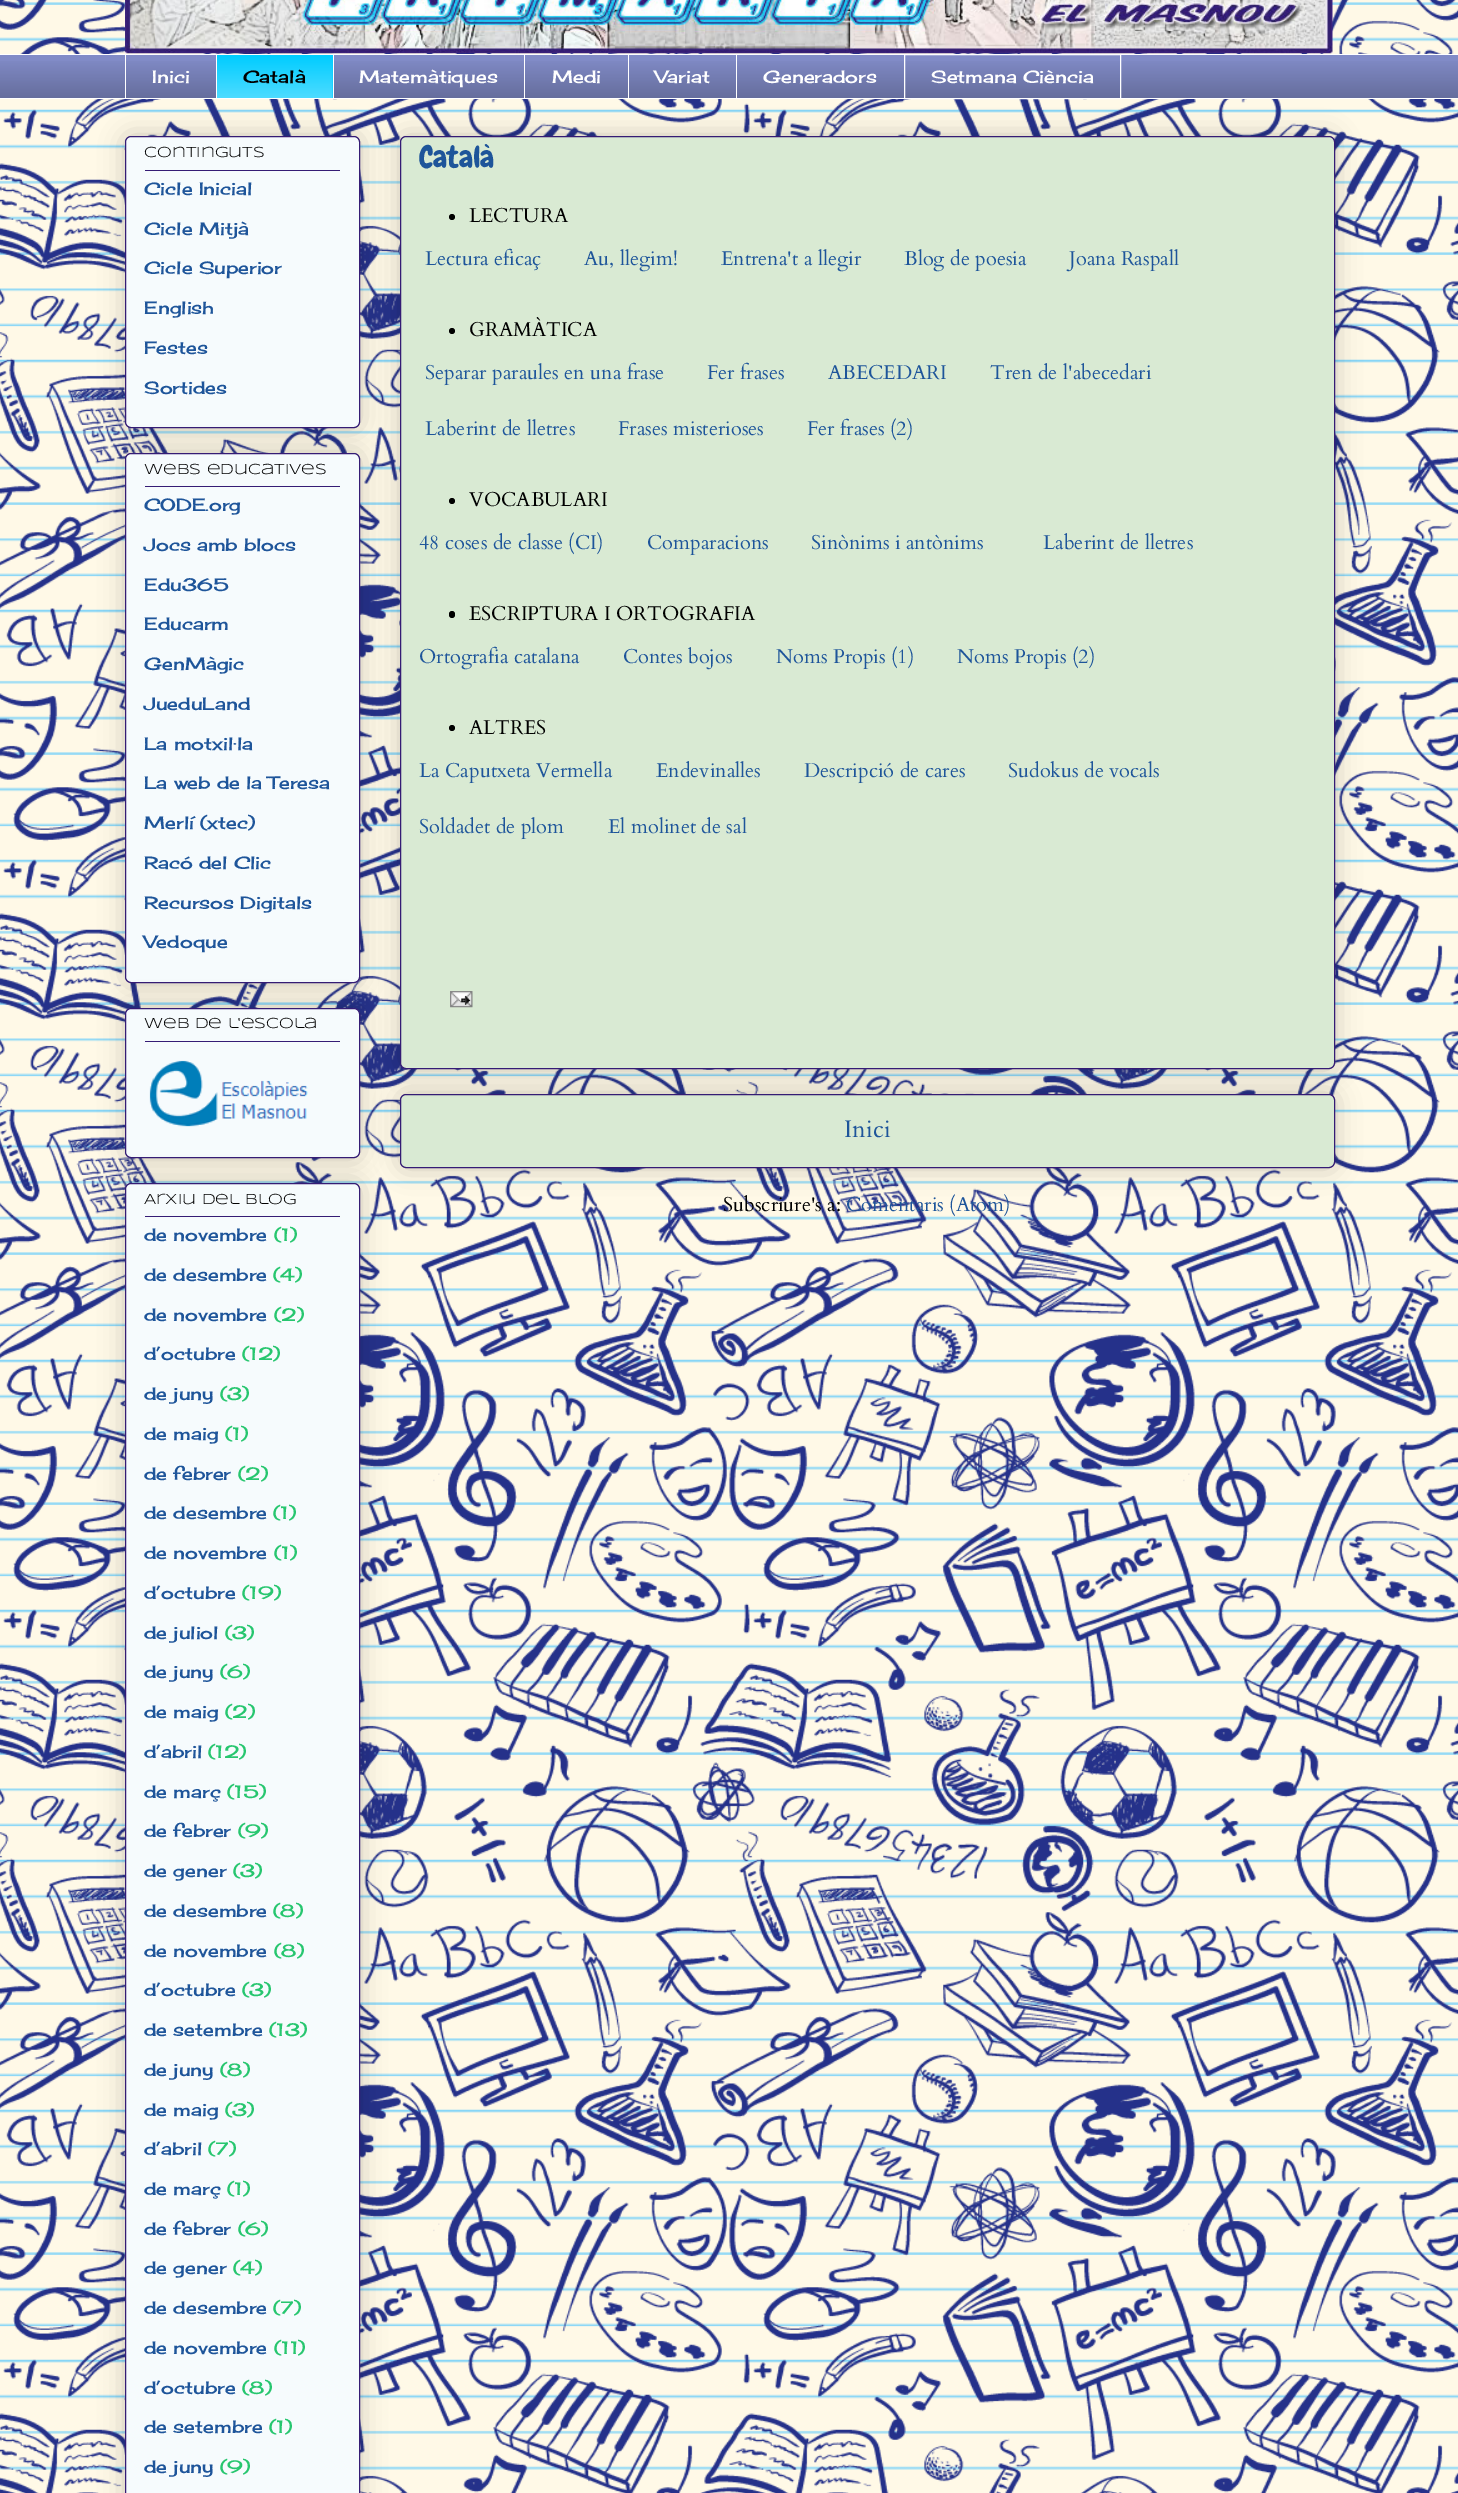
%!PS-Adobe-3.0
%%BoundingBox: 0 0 1458 2493
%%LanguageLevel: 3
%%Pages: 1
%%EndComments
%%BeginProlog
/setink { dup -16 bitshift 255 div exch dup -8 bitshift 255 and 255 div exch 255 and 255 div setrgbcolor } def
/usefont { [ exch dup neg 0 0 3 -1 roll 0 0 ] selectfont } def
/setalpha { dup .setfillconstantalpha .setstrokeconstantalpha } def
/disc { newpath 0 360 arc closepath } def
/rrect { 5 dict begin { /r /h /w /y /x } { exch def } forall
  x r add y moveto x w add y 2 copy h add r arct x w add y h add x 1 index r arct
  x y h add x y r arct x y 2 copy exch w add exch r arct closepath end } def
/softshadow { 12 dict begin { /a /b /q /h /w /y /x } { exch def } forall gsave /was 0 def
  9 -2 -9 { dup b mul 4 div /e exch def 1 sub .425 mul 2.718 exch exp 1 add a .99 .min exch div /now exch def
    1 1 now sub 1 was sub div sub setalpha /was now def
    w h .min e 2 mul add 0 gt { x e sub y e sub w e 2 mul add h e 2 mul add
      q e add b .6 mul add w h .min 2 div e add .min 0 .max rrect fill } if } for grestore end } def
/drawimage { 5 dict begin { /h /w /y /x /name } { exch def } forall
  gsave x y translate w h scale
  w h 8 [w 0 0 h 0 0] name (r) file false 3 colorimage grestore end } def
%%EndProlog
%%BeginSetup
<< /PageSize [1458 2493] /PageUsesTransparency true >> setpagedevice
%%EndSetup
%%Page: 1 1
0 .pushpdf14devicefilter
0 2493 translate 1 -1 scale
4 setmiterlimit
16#FFFFFF setink
0 0 1458 2493 rectfill
(img1.raw) 0 0 1458 2493 drawimage
(img2.raw) 125 0 1208 54 drawimage
16#818BC7 setink
0 55 1458 43 rectfill
(img3.raw) 0 61 1458 37 drawimage
16#FFFFFF setink
0 54 1458 1 rectfill
125 54 1 45 rectfill
/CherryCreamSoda-Regular 17.5 usefont
152 83 moveto (Inici) show
16#00CCFF setink
217 55 116 43 rectfill
(img4.raw) 216 53 117 45 drawimage
16#FFFFFF setink
216 54 117 1 rectfill
216 54 1 45 rectfill
16#000000 setink
243 83 moveto (Català) show
16#FFFFFF setink
333 54 1 45 rectfill
359 83 moveto (Matemàtiques) show
524 54 1 45 rectfill
552 83 moveto (Medi) show
628 54 1 45 rectfill
655 83 moveto (Variat) show
736 54 1 45 rectfill
763 83 moveto (Generadors) show
904.5 54.5 216 44 rectstroke
931 83 moveto (Setmana Ciència) show
0 98 1458 1 rectfill
16#000000 setink
125 136 235 292 6 12.5 0.2 softshadow
16#F6FBFD setink
125.5 136.5 234 291 5.5 rrect gsave fill grestore
16#351C75 setink
stroke
/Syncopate-Regular 15 usefont
16#000000 setink
144 157 moveto (Continguts) show
16#351C75 setink
145 170 195 1 rectfill
/CherryCreamSoda-Regular 17.5 usefont
16#1E559A setink
[
    [(Cicle Inicial) 144 195]
    [(Cicle Mitjà) 144 235]
    [(Cicle Superior) 144 274]
    [(English) 144 314]
    [(Festes) 144 354]
    [(Sortides) 144 394]
] { aload pop moveto show } forall
16#000000 setink
125 453 235 530 6 12.5 0.2 softshadow
16#F6FBFD setink
125.5 453.5 234 529 5.5 rrect gsave fill grestore
16#351C75 setink
stroke
/Syncopate-Regular 15 usefont
16#000000 setink
144 474 moveto (Webs educatives) show
16#351C75 setink
145 486 195 1 rectfill
/CherryCreamSoda-Regular 17.5 usefont
16#1E559A setink
[
    [(CODE.org) 144 511]
    [(Jocs amb blocs) 144 551]
    [(Edu365) 144 591]
    [(Educarm) 144 630]
    [(GenMàgic) 144 670]
    [(JueduLand) 144 710]
    [(La motxil·la) 144 750]
    [(La web de la Teresa) 144 789]
    [(Merlí \(xtec\)) 144 829]
    [(Racó del Clic) 144 869]
    [(Recursos Digitals) 144 909]
    [(Vedoque) 144 948]
] { aload pop moveto show } forall
16#000000 setink
125 1008 235 150 6 12.5 0.2 softshadow
16#F6FBFD setink
125.5 1008.5 234 149 5.5 rrect gsave fill grestore
16#351C75 setink
stroke
/Syncopate-Regular 15 usefont
16#000000 setink
144 1028 moveto (Web de l'escola) show
16#351C75 setink
145 1041 195 1 rectfill
(img5.raw) 149 1060 159 67 drawimage
16#000000 setink
125 1183 235 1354 6 12.5 0.2 softshadow
16#F6FBFD setink
125.5 1183.5 234 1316 5.5 rrect gsave fill grestore
16#351C75 setink
stroke
16#000000 setink
144 1204 moveto (Arxiu del blog) show
16#351C75 setink
145 1216 195 1 rectfill
/CherryCreamSoda-Regular 17.5 usefont
16#1E559A setink
144 1241 moveto (de novembre) show
16#27C66F setink
274 1241 moveto (\(1\)) show
16#1E559A setink
144 1281 moveto (de desembre) show
16#27C66F setink
273 1281 moveto (\(4\)) show
16#1E559A setink
144 1321 moveto (de novembre) show
16#27C66F setink
274 1321 moveto (\(2\)) show
16#1E559A setink
144 1360 moveto (d’octubre) show
16#27C66F setink
242 1360 moveto (\(12\)) show
16#1E559A setink
144 1400 moveto (de juny) show
16#27C66F setink
220 1400 moveto (\(3\)) show
16#1E559A setink
144 1440 moveto (de maig) show
16#27C66F setink
225 1440 moveto (\(1\)) show
16#1E559A setink
144 1480 moveto (de febrer) show
16#27C66F setink
238 1480 moveto (\(2\)) show
16#1E559A setink
144 1519 moveto (de desembre) show
16#27C66F setink
273 1519 moveto (\(1\)) show
16#1E559A setink
144 1559 moveto (de novembre) show
16#27C66F setink
274 1559 moveto (\(1\)) show
16#1E559A setink
144 1599 moveto (d’octubre) show
16#27C66F setink
242 1599 moveto (\(19\)) show
16#1E559A setink
144 1639 moveto (de juliol) show
16#27C66F setink
225 1639 moveto (\(3\)) show
16#1E559A setink
144 1678 moveto (de juny) show
16#27C66F setink
220 1678 moveto (\(6\)) show
16#1E559A setink
144 1718 moveto (de maig) show
16#27C66F setink
225 1718 moveto (\(2\)) show
16#1E559A setink
144 1758 moveto (d’abril) show
16#27C66F setink
208 1758 moveto (\(12\)) show
16#1E559A setink
144 1798 moveto (de març) show
16#27C66F setink
227 1798 moveto (\(15\)) show
16#1E559A setink
144 1837 moveto (de febrer) show
16#27C66F setink
238 1837 moveto (\(9\)) show
16#1E559A setink
144 1877 moveto (de gener) show
16#27C66F setink
233 1877 moveto (\(3\)) show
16#1E559A setink
144 1917 moveto (de desembre) show
16#27C66F setink
273 1917 moveto (\(8\)) show
16#1E559A setink
144 1957 moveto (de novembre) show
16#27C66F setink
274 1957 moveto (\(8\)) show
16#1E559A setink
144 1996 moveto (d’octubre) show
16#27C66F setink
242 1996 moveto (\(3\)) show
16#1E559A setink
144 2036 moveto (de setembre) show
16#27C66F setink
269 2036 moveto (\(13\)) show
16#1E559A setink
144 2076 moveto (de juny) show
16#27C66F setink
220 2076 moveto (\(8\)) show
16#1E559A setink
144 2116 moveto (de maig) show
16#27C66F setink
225 2116 moveto (\(3\)) show
16#1E559A setink
144 2155 moveto (d’abril) show
16#27C66F setink
208 2155 moveto (\(7\)) show
16#1E559A setink
144 2195 moveto (de març) show
16#27C66F setink
227 2195 moveto (\(1\)) show
16#1E559A setink
144 2235 moveto (de febrer) show
16#27C66F setink
238 2235 moveto (\(6\)) show
16#1E559A setink
144 2274 moveto (de gener) show
16#27C66F setink
233 2274 moveto (\(4\)) show
16#1E559A setink
144 2314 moveto (de desembre) show
16#27C66F setink
273 2314 moveto (\(7\)) show
16#1E559A setink
144 2354 moveto (de novembre) show
16#27C66F setink
274 2354 moveto (\(11\)) show
16#1E559A setink
144 2394 moveto (d’octubre) show
16#27C66F setink
242 2394 moveto (\(8\)) show
16#1E559A setink
144 2433 moveto (de setembre) show
16#27C66F setink
269 2433 moveto (\(1\)) show
16#1E559A setink
144 2473 moveto (de juny) show
16#27C66F setink
220 2473 moveto (\(9\)) show
16#000000 setink
400 1094 935 74 6 12.5 0.2 softshadow
16#D9EAD3 setink
400.5 1094.5 934 73 5.5 rrect gsave fill grestore
16#351C75 setink
stroke
16#000000 setink
400 136 935 933 6 12.5 0.2 softshadow
16#D9EAD3 setink
400.5 136.5 934 932 5.5 rrect gsave fill grestore
16#351C75 setink
stroke
/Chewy-Regular 30 usefont
16#1E559A setink
419 167 moveto (Català) show
16#000000 setink
452 217 3 disc fill
/Cardo-Regular 20 usefont
469 222 moveto (LECTURA) show
16#1E559A setink
[
    [(Lectura eficaç) 425 265]
    [(Au, llegim!) 584 265]
    [(Entrena't a llegir) 721 265]
    [(Blog de poesia) 904 265]
    [(Joana Raspall) 1069 265]
] { aload pop moveto show } forall
16#000000 setink
452 331 3 disc fill
469 336 moveto (GRAMÀTICA) show
16#1E559A setink
[
    [(Separar paraules en una frase) 425 379]
    [(Fer frases) 707 379]
    [(ABECEDARI) 828 379]
    [(Tren de l'abecedari) 990 379]
    [(Laberint de lletres) 425 435]
    [(Frases misterioses) 618 435]
    [(Fer frases \(2\)) 807 435]
] { aload pop moveto show } forall
16#000000 setink
452 501 3 disc fill
469 506 moveto (VOCABULARI) show
16#1E559A setink
[
    [(48 coses de classe \(CI\)) 419 549]
    [(Comparacions) 647 549]
    [(Sinònims i antònims) 811 549]
    [(Laberint de lletres) 1043 549]
] { aload pop moveto show } forall
16#000000 setink
449 611 6 7 3 rrect fill
469 620 moveto (ESCRIPTURA I ORTOGRAFIA) show
16#1E559A setink
[
    [(Ortografia catalana) 419 663]
    [(Contes bojos) 623 663]
    [(Noms Propis \(1\)) 776 663]
    [(Noms Propis \(2\)) 957 663]
] { aload pop moveto show } forall
16#000000 setink
452 728 3 disc fill
469 734 moveto (ALTRES) show
16#1E559A setink
[
    [(La Caputxeta Vermella) 419 777]
    [(Endevinalles) 656 777]
    [(Descripció de cares) 804 777]
    [(Sudokus de vocals) 1008 777]
    [(Soldadet de plom) 419 833]
    [(El molinet de sal) 608 833]
] { aload pop moveto show } forall
(img6.raw) 450 991 23 17 drawimage
/Cardo-Regular 24 usefont
844 1137 moveto (Inici) show
/Cardo-Regular 20 usefont
16#000000 setink
723 1211 moveto (Subscriure's a:) show
16#1E559A setink
846 1211 moveto (Comentaris \(Atom\)) show
.poppdf14devicefilter showpage
%%EOF
